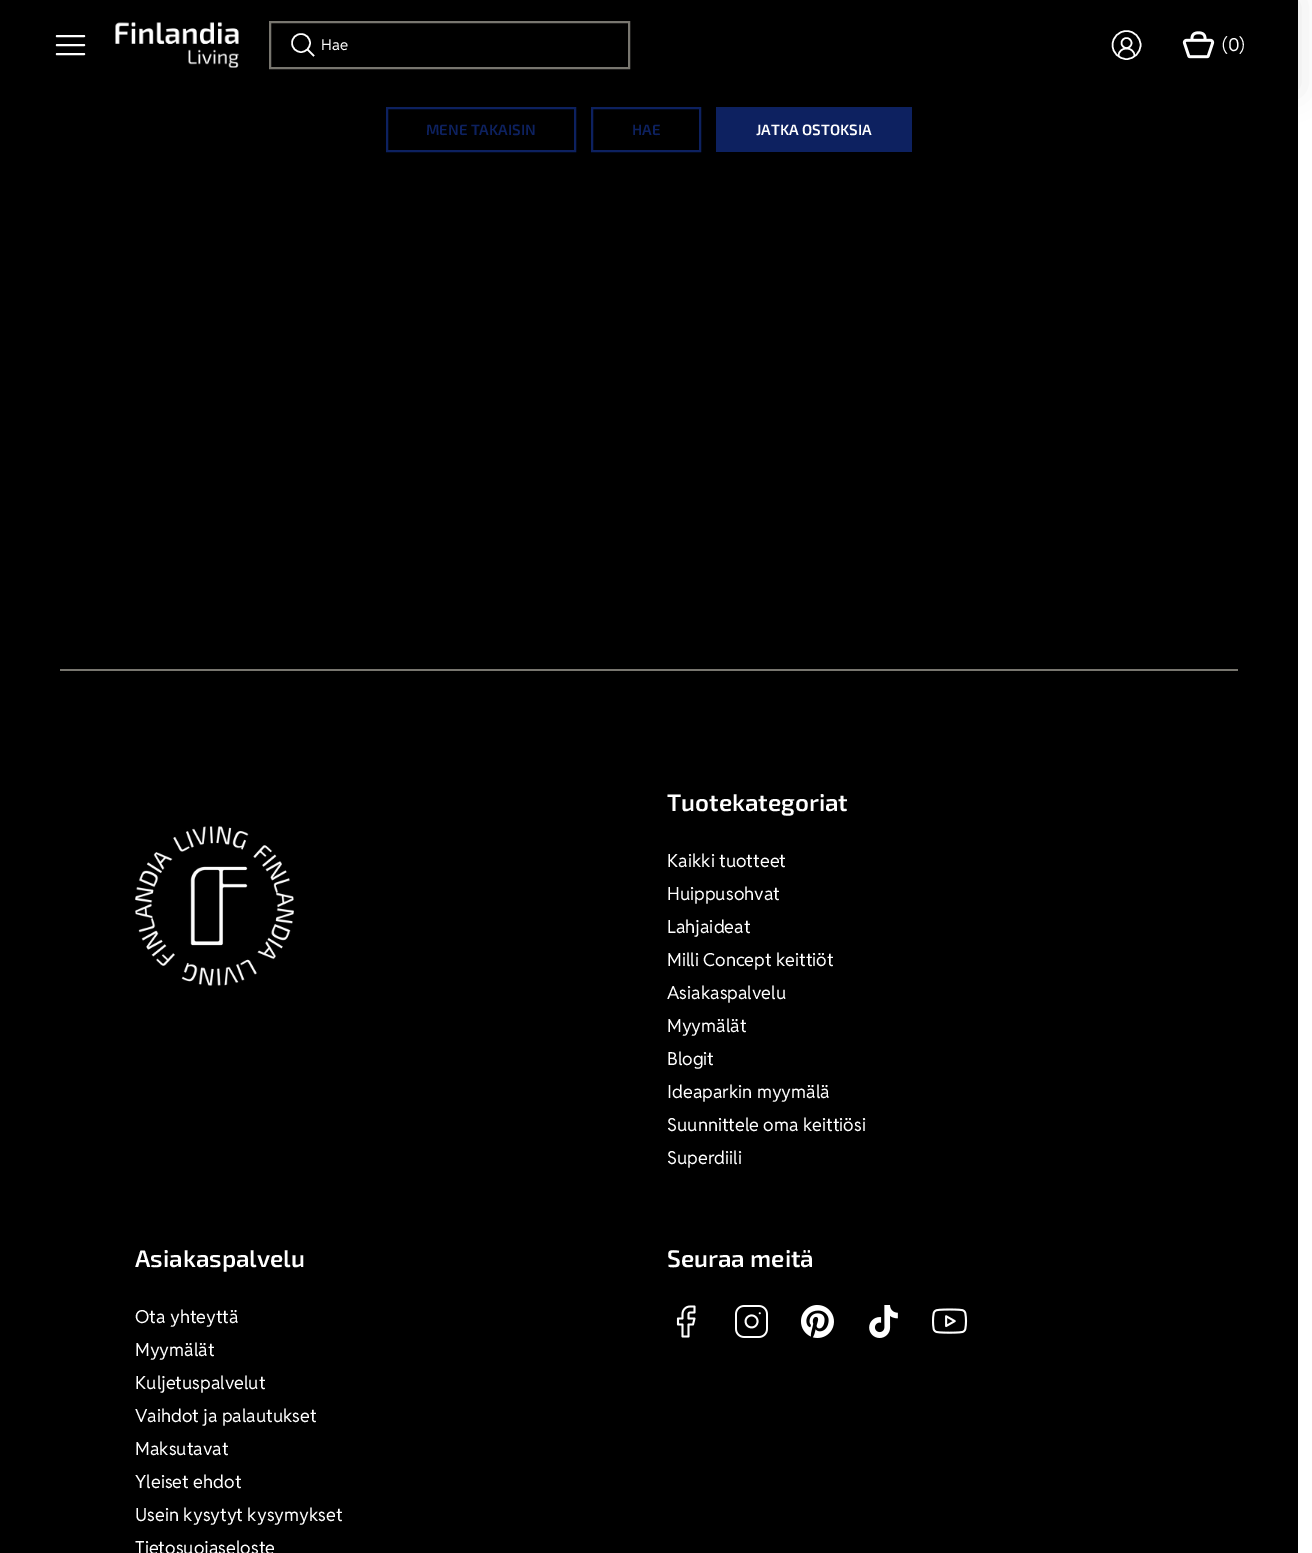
%!PS-Adobe-3.0
%%BoundingBox: 0 0 1312 1553
%%LanguageLevel: 3
%%Pages: 1
%%EndComments
%%BeginProlog
/setink { dup -16 bitshift 255 div exch dup -8 bitshift 255 and 255 div exch 255 and 255 div setrgbcolor } def
/usefont { [ exch dup neg 0 0 3 -1 roll 0 0 ] selectfont } def
/setalpha { dup .setfillconstantalpha .setstrokeconstantalpha } def
/disc { newpath 0 360 arc closepath } def
/rrect { 5 dict begin { /r /h /w /y /x } { exch def } forall
  x r add y moveto x w add y 2 copy h add r arct x w add y h add x 1 index r arct
  x y h add x y r arct x y 2 copy exch w add exch r arct closepath end } def
/softshadow { 12 dict begin { /a /b /q /h /w /y /x } { exch def } forall gsave /was 0 def
  9 -2 -9 { dup b mul 4 div /e exch def 1 sub .425 mul 2.718 exch exp 1 add a .99 .min exch div /now exch def
    1 1 now sub 1 was sub div sub setalpha /was now def
    w h .min e 2 mul add 0 gt { x e sub y e sub w e 2 mul add h e 2 mul add
      q e add b .6 mul add w h .min 2 div e add .min 0 .max rrect fill } if } for grestore end } def
/drawimage { 5 dict begin { /h /w /y /x /name } { exch def } forall
  gsave x y translate w h scale
  w h 8 [w 0 0 h 0 0] name (r) file false 3 colorimage grestore end } def
%%EndProlog
%%BeginSetup
<< /PageSize [1312 1553] /PageUsesTransparency true >> setpagedevice
%%EndSetup
%%Page: 1 1
0 .pushpdf14devicefilter
0 1553 translate 1 -1 scale
4 setmiterlimit
16#FFFFFF setink
0 0 1312 1553 rectfill
16#000000 setink
0 90 1298 1463 rectfill
16#0D2160 setink
2 setlinewidth
387 108 188 43 rectstroke
592 108 108 43 rectstroke
716 107 196 45 rectfill
16#000000 setink
0 0 1298 90 0 15 0.1 softshadow
0 0 1298 90 rectfill
16#FFFFFF setink
2.1 setlinewidth
1 setlinecap
1 setlinejoin
57 45 moveto 84 45 lineto 57 36 moveto 84 36 lineto 57 54 moveto 84 54 lineto stroke
(img1.raw) 115 22 124 46 drawimage
16#78766F setink
2 setlinewidth
0 setlinecap
0 setlinejoin
270 22 359 46 rectstroke
16#FFFFFF setink
1.5 setlinewidth
301 43 9 disc stroke
314 56 moveto 307 49 lineto stroke
/RedditSans-Regular 15 usefont
321 50 moveto (Hae) show
1134.5 56 moveto 1134.5 46 1118.5 46 1118.5 56 curveto stroke
1126.5 45 14 disc stroke
1126.5 43 5 disc stroke
(img2.raw) 1182 31 33 28 drawimage
/RedditSans-Regular 18 usefont
1222 51 moveto (\(0\)) show
/Exo2-SemiBold 15 usefont
16#0D2160 setink
426 135 moveto (MENE TAKAISIN) show
632 135 moveto (HAE) show
16#FFFFFF setink
756 135 moveto (JATKA OSTOKSIA) show
16#78766F setink
60 669 1178 2 rectfill
(img3.raw) 135 826 159 160 drawimage
/Exo2-SemiBold 24 usefont
16#FFFFFF setink
667 811 moveto (Tuotekategoriat) show
/RedditSans-Regular 18 usefont
[
    [(Kaikki tuotteet) 667 867]
    [(Huippusohvat) 667 900]
    [(Lahjaideat) 667 933]
    [(Milli Concept keittiöt) 667 966]
    [(Asiakaspalvelu) 667 999]
    [(Myymälät) 667 1032]
    [(Blogit) 667 1065]
    [(Ideaparkin myymälä) 667 1098]
    [(Suunnittele oma keittiösi) 667 1131]
    [(Superdiili) 667 1164]
] { aload pop moveto show } forall
/Exo2-SemiBold 24 usefont
135 1267 moveto (Asiakaspalvelu) show
/RedditSans-Regular 18 usefont
[
    [(Ota yhteyttä) 135 1323]
    [(Myymälät) 135 1356]
    [(Kuljetuspalvelut) 135 1389]
    [(Vaihdot ja palautukset) 135 1422]
    [(Maksutavat) 135 1455]
    [(Yleiset ehdot) 135 1488]
    [(Usein kysytyt kysymykset) 135 1521]
    [(Tietosuojaseloste) 135 1554]
] { aload pop moveto show } forall
/Exo2-SemiBold 24 usefont
667 1267 moveto (Seuraa meitä) show
(img4.raw) 676 1305 20 33 drawimage
(img5.raw) 735 1305 33 33 drawimage
(img6.raw) 801 1305 33 33 drawimage
(img7.raw) 869 1305 29 33 drawimage
(img8.raw) 932 1308 36 26 drawimage
.poppdf14devicefilter showpage
%%EOF
